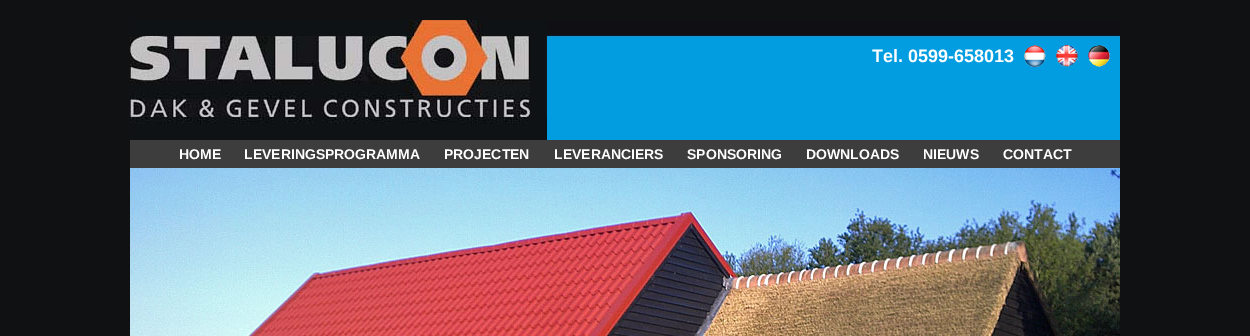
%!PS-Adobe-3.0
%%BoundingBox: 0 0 1250 336
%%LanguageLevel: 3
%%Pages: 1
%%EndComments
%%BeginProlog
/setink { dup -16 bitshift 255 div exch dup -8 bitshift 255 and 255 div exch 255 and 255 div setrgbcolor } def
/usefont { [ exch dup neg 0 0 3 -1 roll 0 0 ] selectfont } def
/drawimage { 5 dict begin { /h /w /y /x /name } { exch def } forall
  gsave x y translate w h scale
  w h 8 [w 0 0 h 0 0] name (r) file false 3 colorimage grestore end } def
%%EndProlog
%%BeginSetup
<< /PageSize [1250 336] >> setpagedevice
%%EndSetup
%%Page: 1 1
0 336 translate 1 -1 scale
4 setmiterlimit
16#101112 setink
0 0 1250 336 rectfill
(img1.raw) 130 20 990 316 drawimage
(img2.raw) 130 20 417 120 drawimage
/LiberationSans-Bold 18 usefont
16#FFFFFF setink
872 62 moveto (Tel. 0599-658013) show
(img3.raw) 1024 45 22 22 drawimage
(img4.raw) 1056 45 22 22 drawimage
(img5.raw) 1088 45 22 22 drawimage
16#3D3D3D setink
130 140 990 28 rectfill
/LiberationSans-Bold 14 usefont
16#FFFFFF setink
[
    [(HOME) 179 159]
    [(LEVERINGSPROGRAMMA) 244 159]
    [(PROJECTEN) 444 159]
    [(LEVERANCIERS) 554 159]
    [(SPONSORING) 687 159]
    [(DOWNLOADS) 806 159]
    [(NIEUWS) 923 159]
    [(CONTACT) 1003 159]
] { aload pop moveto show } forall
(img6.raw) 130 168 990 168 drawimage
(img7.raw) 130 168 990 168 drawimage
showpage
%%EOF
